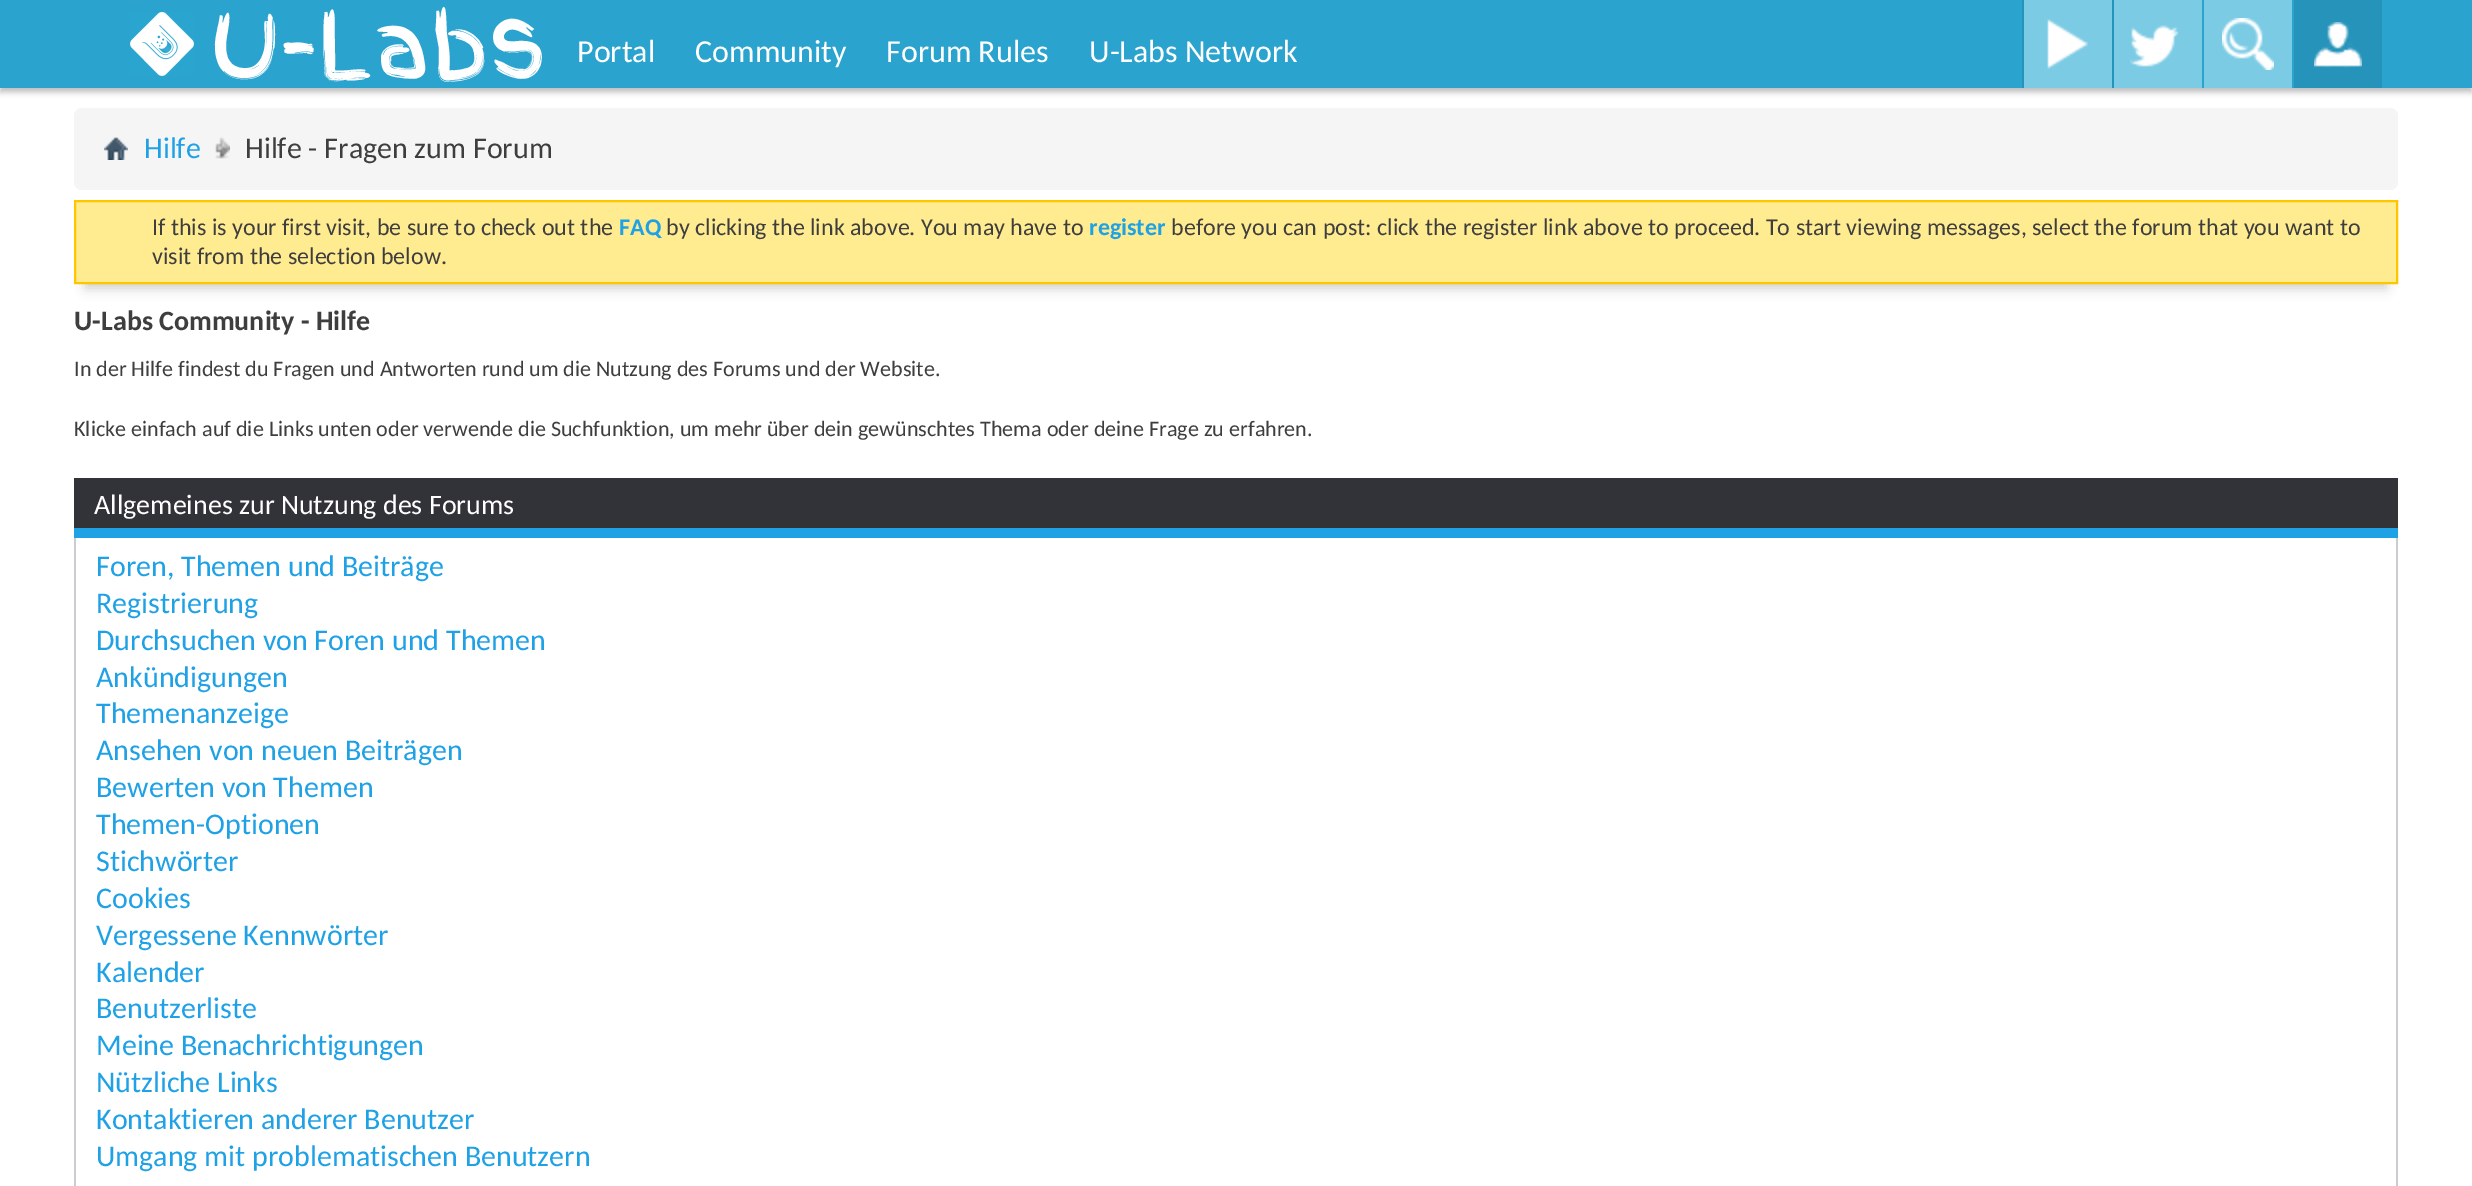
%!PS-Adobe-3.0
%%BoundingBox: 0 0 2472 1186
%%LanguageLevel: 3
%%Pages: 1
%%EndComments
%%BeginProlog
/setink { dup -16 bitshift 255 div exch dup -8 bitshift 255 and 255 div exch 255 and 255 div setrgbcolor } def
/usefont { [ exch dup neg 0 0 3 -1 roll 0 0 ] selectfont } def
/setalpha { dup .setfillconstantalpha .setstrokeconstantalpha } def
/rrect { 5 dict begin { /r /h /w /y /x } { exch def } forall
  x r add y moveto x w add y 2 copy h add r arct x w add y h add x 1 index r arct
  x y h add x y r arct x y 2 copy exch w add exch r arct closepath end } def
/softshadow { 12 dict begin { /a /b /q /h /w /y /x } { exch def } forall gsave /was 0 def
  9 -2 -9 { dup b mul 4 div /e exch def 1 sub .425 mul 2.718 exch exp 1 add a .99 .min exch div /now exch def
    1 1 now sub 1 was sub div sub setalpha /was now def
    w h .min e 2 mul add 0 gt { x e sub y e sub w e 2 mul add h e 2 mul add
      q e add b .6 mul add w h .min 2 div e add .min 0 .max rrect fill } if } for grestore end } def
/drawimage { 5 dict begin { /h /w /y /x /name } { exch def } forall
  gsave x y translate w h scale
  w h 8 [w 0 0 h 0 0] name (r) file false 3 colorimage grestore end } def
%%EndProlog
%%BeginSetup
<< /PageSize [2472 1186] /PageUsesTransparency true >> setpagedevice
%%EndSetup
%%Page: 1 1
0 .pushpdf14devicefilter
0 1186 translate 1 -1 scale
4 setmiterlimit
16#FFFFFF setink
0 0 2472 1186 rectfill
16#000000 setink
0 4 2472 88 0 3 0.26 softshadow
16#2AA4CF setink
0 0 2472 88 rectfill
(img1.raw) 130 12 64 64 drawimage
/FingerPaint-Regular 90 usefont
16#FFFFFF setink
210 76 moveto (U-Labs) show
/Carlito-Regular 32 usefont
[
    [(Portal) 577 62]
    [(Community) 695 62]
    [(Forum Rules) 886 62]
    [(U-Labs Network) 1089 62]
] { aload pop moveto show } forall
16#7CCBE4 setink
2024 0 88 88 rectfill
(img2.raw) 2047 19 41 50 drawimage
16#2693BA setink
2022 0 2 88 rectfill
16#7CCBE4 setink
2114 0 88 88 rectfill
(img3.raw) 2130 25 48 42 drawimage
16#2693BA setink
2112 0 2 88 rectfill
16#7CCBE4 setink
2204 0 88 88 rectfill
(img4.raw) 2222 18 52 52 drawimage
16#2693BA setink
2294 0 88 88 rectfill
(img5.raw) 2314 22 48 46 drawimage
16#F5F5F5 setink
74 108 2324 82 8 rrect fill
(img6.raw) 104 137 24 23 drawimage
(img7.raw) 215 137 15 22 drawimage
/Carlito-Regular 30 usefont
16#1FA1E5 setink
144 158 moveto (Hilfe) show
16#3E3E3E setink
245 158 moveto (Hilfe - Fragen zum Forum) show
16#000000 setink
86 228 2300 60 0 6 0.2 softshadow
16#FFEB90 setink
75 201 moveto 2397 201 lineto 2397 283 lineto 75 283 lineto closepath gsave fill grestore
16#FFC600 setink
2 setlinewidth
stroke
/Carlito-Regular 24 usefont
16#3E3E3E setink
152 235 moveto (If this is your first visit, be sure to check out the) show
/Carlito-Bold 24 usefont
16#1FA1E5 setink
619 235 moveto (FAQ) show
/Carlito-Regular 24 usefont
16#3E3E3E setink
666 235 moveto (by clicking the link above. You may have to) show
/Carlito-Bold 24 usefont
16#1FA1E5 setink
1089 235 moveto (register) show
/Carlito-Regular 24 usefont
16#3E3E3E setink
1171 235 moveto (before you can post: click the register link above to proceed. To start viewing messages, select the forum that you want to) show
152 264 moveto (visit from the selection below.) show
/Carlito-Bold 28 usefont
74 330 moveto (U-Labs Community - Hilfe) show
/Carlito-Regular 22.1 usefont
74 376 moveto (In der Hilfe findest du Fragen und Antworten rund um die Nutzung des Forums und der Website.) show
74 436 moveto (Klicke einfach auf die Links unten oder verwende die Suchfunktion, um mehr über dein gewünschtes Thema oder deine Frage zu erfahren.) show
16#323239 setink
74 478 2324 50 rectfill
16#1FA1E5 setink
74 528 2324 10 rectfill
/Carlito-Regular 28 usefont
16#FFFFFF setink
94 514 moveto (Allgemeines zur Nutzung des Forums) show
16#CBCCCF setink
2396 538 2 648 rectfill
74 538 2 648 rectfill
/Carlito-Regular 30 usefont
16#1FA1E5 setink
[
    [(Foren, Themen und Beiträge) 96 576]
    [(Registrierung) 96 613]
    [(Durchsuchen von Foren und Themen) 96 650]
    [(Ankündigungen) 96 687]
    [(Themenanzeige) 96 723]
    [(Ansehen von neuen Beiträgen) 96 760]
    [(Bewerten von Themen) 96 797]
    [(Themen-Optionen) 96 834]
    [(Stichwörter) 96 871]
    [(Cookies) 96 908]
    [(Vergessene Kennwörter) 96 945]
    [(Kalender) 96 982]
    [(Benutzerliste) 96 1018]
    [(Meine Benachrichtigungen) 96 1055]
    [(Nützliche Links) 96 1092]
    [(Kontaktieren anderer Benutzer) 96 1129]
    [(Umgang mit problematischen Benutzern) 96 1166]
] { aload pop moveto show } forall
.poppdf14devicefilter showpage
%%EOF
